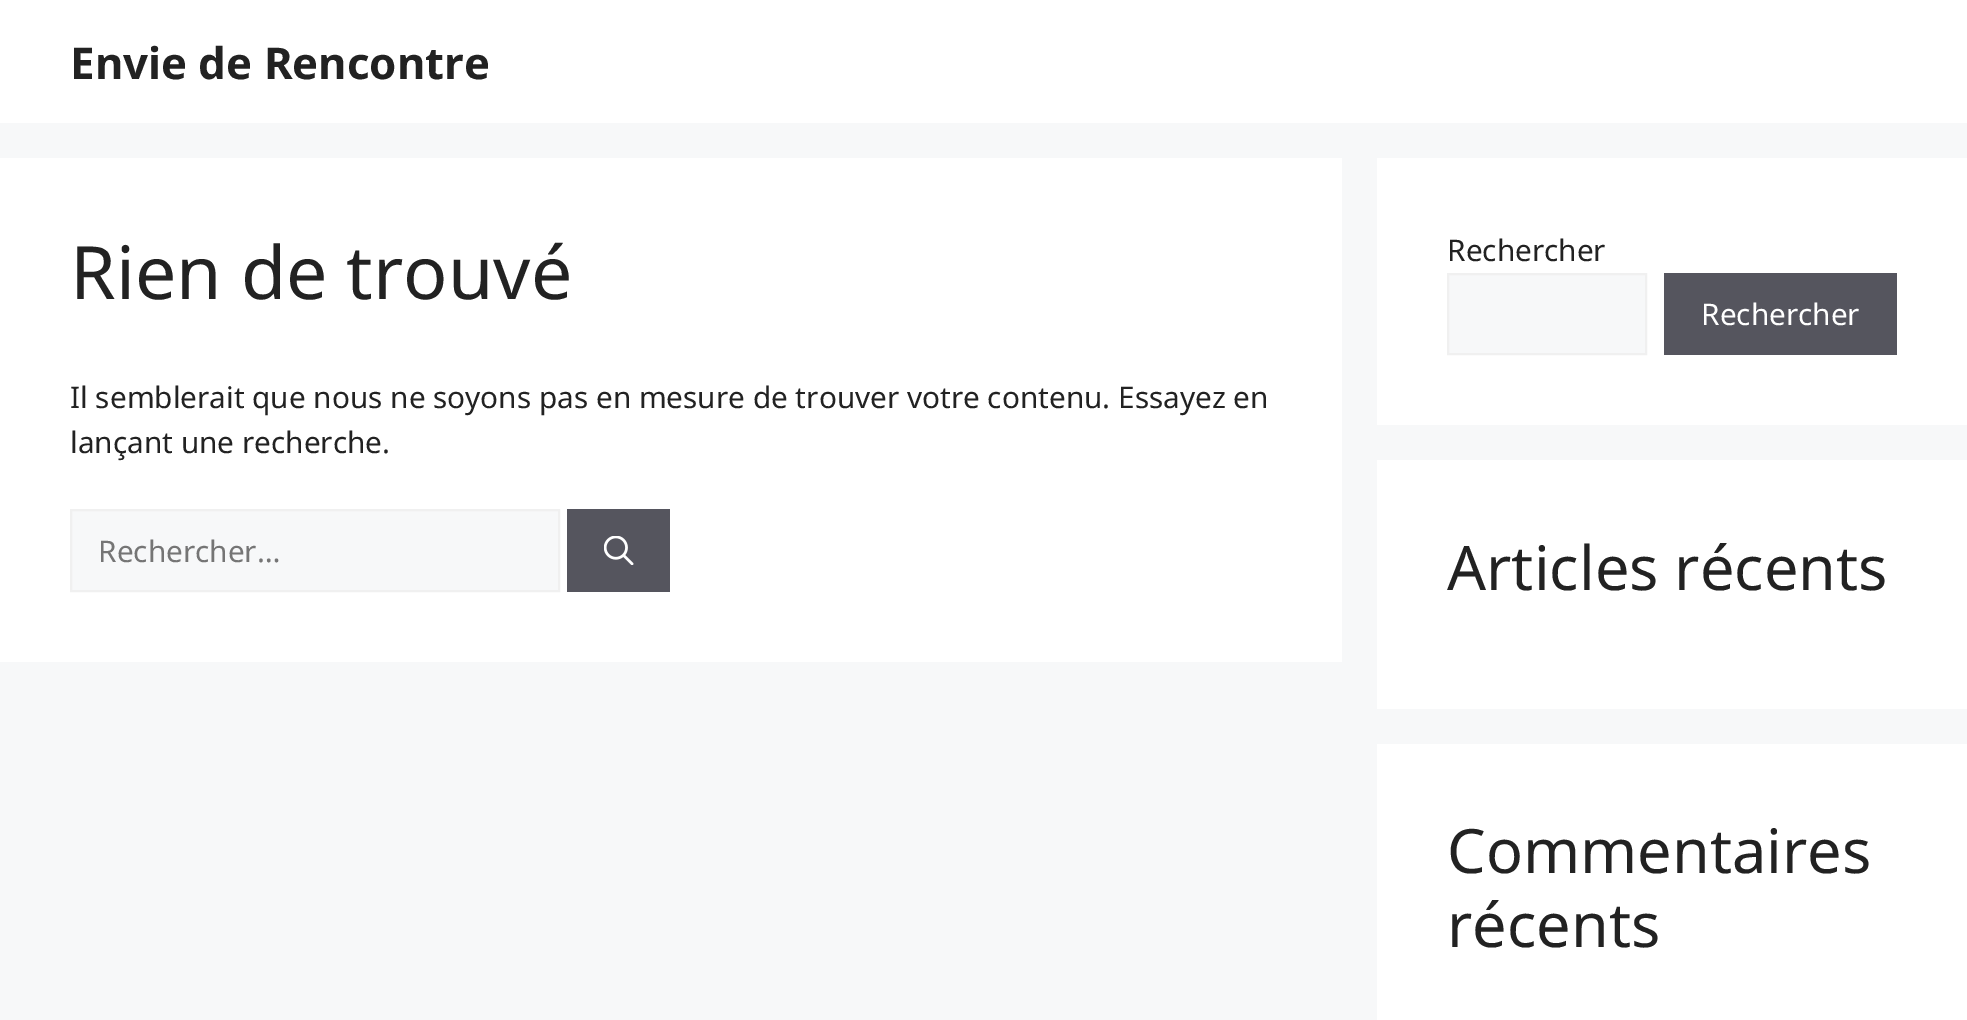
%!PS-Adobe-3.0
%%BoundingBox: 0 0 1967 1020
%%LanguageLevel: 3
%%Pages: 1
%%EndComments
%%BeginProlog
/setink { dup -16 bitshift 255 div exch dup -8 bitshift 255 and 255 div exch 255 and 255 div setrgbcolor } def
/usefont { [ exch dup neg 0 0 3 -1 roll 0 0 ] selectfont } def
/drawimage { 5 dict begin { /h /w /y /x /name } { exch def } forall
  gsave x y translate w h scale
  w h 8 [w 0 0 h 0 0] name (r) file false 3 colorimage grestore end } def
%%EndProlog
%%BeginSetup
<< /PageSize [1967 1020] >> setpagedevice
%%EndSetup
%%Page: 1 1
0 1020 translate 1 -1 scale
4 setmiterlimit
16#F7F8F9 setink
0 0 1967 1020 rectfill
16#FFFFFF setink
0 0 1967 123 rectfill
/NotoSans-Bold 43.75 usefont
16#222222 setink
70 79 moveto (Envie de Rencontre) show
16#FFFFFF setink
0 158 1342 504 rectfill
/NotoSans-Regular 73.5 usefont
16#222222 setink
70 299 moveto (Rien de trouvé) show
/NotoSans-Regular 29.75 usefont
70 408 moveto (Il semblerait que nous ne soyons pas en mesure de trouver votre contenu. Essayez en) show
70 453 moveto (lançant une recherche.) show
16#F7F8F9 setink
71 510 moveto 559 510 lineto 559 591 lineto 71 591 lineto closepath gsave fill grestore
16#F0F0F0 setink
2 setlinewidth
stroke
16#757575 setink
98 562 moveto (Rechercher…) show
16#55555E setink
567 509 103 83 rectfill
(img1.raw) 604 536 30 29 drawimage
16#FFFFFF setink
1377 158 590 267 rectfill
16#222222 setink
1447 261 moveto (Rechercher) show
16#F7F8F9 setink
1448 274 moveto 1646 274 lineto 1646 354 lineto 1448 354 lineto closepath gsave fill grestore
16#F0F0F0 setink
stroke
16#55555E setink
1664 273 233 82 rectfill
16#FFFFFF setink
1701 325 moveto (Rechercher) show
1377 460 590 249 rectfill
/NotoSans-Regular 61.25 usefont
16#222222 setink
1447 590 moveto (Articles récents) show
16#FFFFFF setink
1377 744 590 276 rectfill
16#222222 setink
1447 873 moveto (Commentaires) show
1447 947 moveto (récents) show
showpage
%%EOF
